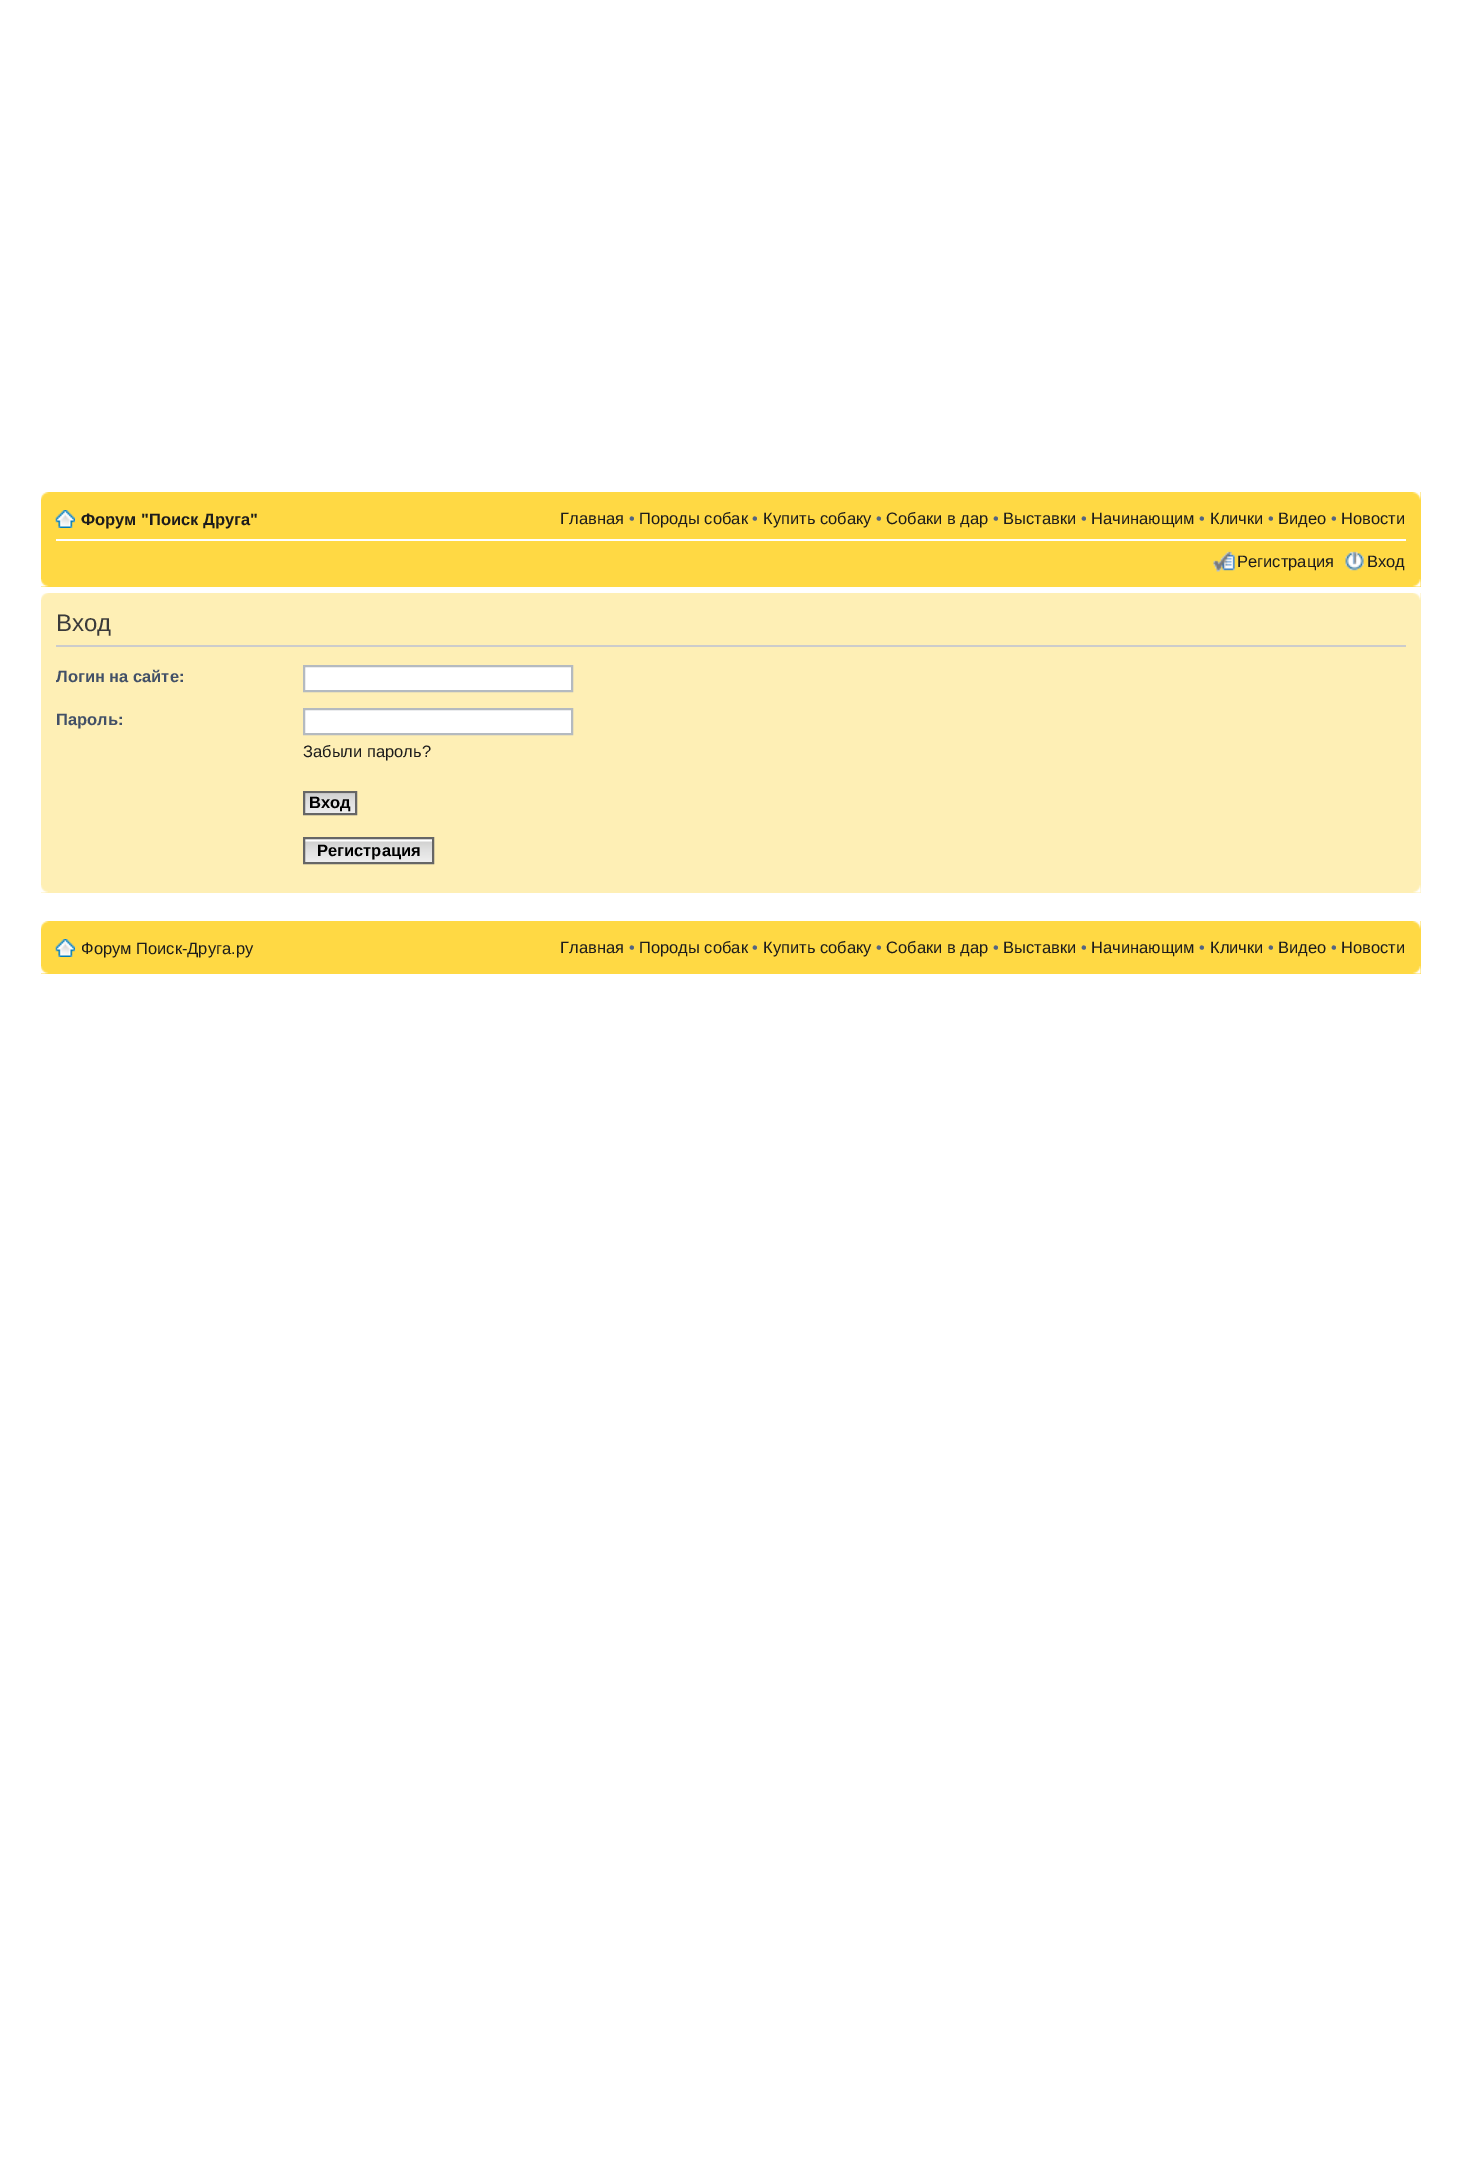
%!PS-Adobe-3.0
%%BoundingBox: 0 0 1460 2161
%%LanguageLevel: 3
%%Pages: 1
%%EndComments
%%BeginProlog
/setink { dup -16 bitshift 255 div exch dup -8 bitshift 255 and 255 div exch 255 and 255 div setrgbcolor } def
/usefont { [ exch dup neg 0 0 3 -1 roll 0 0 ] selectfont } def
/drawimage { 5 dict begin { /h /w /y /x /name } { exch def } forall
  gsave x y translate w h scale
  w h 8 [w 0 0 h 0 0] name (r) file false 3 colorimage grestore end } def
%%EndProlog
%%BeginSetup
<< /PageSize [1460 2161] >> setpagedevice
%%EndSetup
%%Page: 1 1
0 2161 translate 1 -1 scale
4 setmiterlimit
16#FFFFFF setink
0 0 1460 2161 rectfill
16#FFD944 setink
41 492 1380 95 rectfill
(img1.raw) 41 492 8 8 drawimage
(img2.raw) 1412 492 9 8 drawimage
16#FFFFFF setink
56 539 1350 2 rectfill
(img3.raw) 55 510 20 18 drawimage
/LiberationSans-Bold 16.5 usefont
16#1C1C1C setink
81 525 moveto (Форум "Поиск Друга") show
/LiberationSans-Regular 16.5 usefont
560 524 moveto (Главная) show
16#536482 setink
629 524 moveto (•) show
16#1C1C1C setink
639 524 moveto (Породы собак) show
16#536482 setink
752 524 moveto (•) show
16#1C1C1C setink
763 524 moveto (Купить собаку) show
16#536482 setink
876 524 moveto (•) show
16#1C1C1C setink
886 524 moveto (Собаки в дар) show
16#536482 setink
993 524 moveto (•) show
16#1C1C1C setink
1003 524 moveto (Выставки) show
16#536482 setink
1081 524 moveto (•) show
16#1C1C1C setink
1091 524 moveto (Начинающим) show
16#536482 setink
1199 524 moveto (•) show
16#1C1C1C setink
1210 524 moveto (Клички) show
16#536482 setink
1268 524 moveto (•) show
16#1C1C1C setink
1278 524 moveto (Видео) show
16#536482 setink
1331 524 moveto (•) show
16#1C1C1C setink
1341 524 moveto (Новости) show
(img4.raw) 1213 551 22 21 drawimage
1237 567 moveto (Регистрация) show
(img5.raw) 1345 551 19 20 drawimage
1367 567 moveto (Вход) show
(img6.raw) 41 579 8 8 drawimage
(img7.raw) 1412 579 9 8 drawimage
16#FEEFB5 setink
41 593 1380 300 rectfill
(img8.raw) 41 593 8 7 drawimage
(img9.raw) 1413 593 8 7 drawimage
16#CCCCCC setink
56 645 1350 2 rectfill
/LiberationSans-Regular 24 usefont
16#3A3A3A setink
56 631 moveto (Вход) show
/LiberationSans-Bold 16.5 usefont
16#425067 setink
56 682 moveto (Логин на сайте:) show
16#FFFFFF setink
304 666 moveto 572 666 lineto 572 691 lineto 304 691 lineto closepath gsave fill grestore
16#B4BAC0 setink
2 setlinewidth
stroke
16#425067 setink
56 725 moveto (Пароль:) show
16#FFFFFF setink
304 709 moveto 572 709 lineto 572 734 lineto 304 734 lineto closepath gsave fill grestore
16#B4BAC0 setink
stroke
/LiberationSans-Regular 16.5 usefont
16#1C1C1C setink
303 757 moveto (Забыли пароль?) show
(img10.raw) 305 793 50 20 drawimage
16#666666 setink
304 792 52 22 rectstroke
/LiberationSans-Bold 16.5 usefont
16#000000 setink
309 808 moveto (Вход) show
(img11.raw) 305 840 127 22 drawimage
16#FAFAFA setink
305 839 127 1 rectfill
16#666666 setink
304 838 129 25 rectstroke
16#000000 setink
317 856 moveto (Регистрация) show
(img12.raw) 41 885 7 8 drawimage
(img13.raw) 1413 885 8 8 drawimage
16#FFD944 setink
41 921 1380 53 rectfill
(img1.raw) 41 921 8 8 drawimage
(img2.raw) 1412 921 9 8 drawimage
(img3.raw) 55 939 20 18 drawimage
/LiberationSans-Regular 16.5 usefont
16#1C1C1C setink
81 954 moveto (Форум Поиск-Друга.ру) show
560 953 moveto (Главная) show
16#536482 setink
629 953 moveto (•) show
16#1C1C1C setink
639 953 moveto (Породы собак) show
16#536482 setink
752 953 moveto (•) show
16#1C1C1C setink
763 953 moveto (Купить собаку) show
16#536482 setink
876 953 moveto (•) show
16#1C1C1C setink
886 953 moveto (Собаки в дар) show
16#536482 setink
993 953 moveto (•) show
16#1C1C1C setink
1003 953 moveto (Выставки) show
16#536482 setink
1081 953 moveto (•) show
16#1C1C1C setink
1091 953 moveto (Начинающим) show
16#536482 setink
1199 953 moveto (•) show
16#1C1C1C setink
1210 953 moveto (Клички) show
16#536482 setink
1268 953 moveto (•) show
16#1C1C1C setink
1278 953 moveto (Видео) show
16#536482 setink
1331 953 moveto (•) show
16#1C1C1C setink
1341 953 moveto (Новости) show
(img6.raw) 41 966 8 8 drawimage
(img7.raw) 1412 966 9 8 drawimage
showpage
%%EOF
